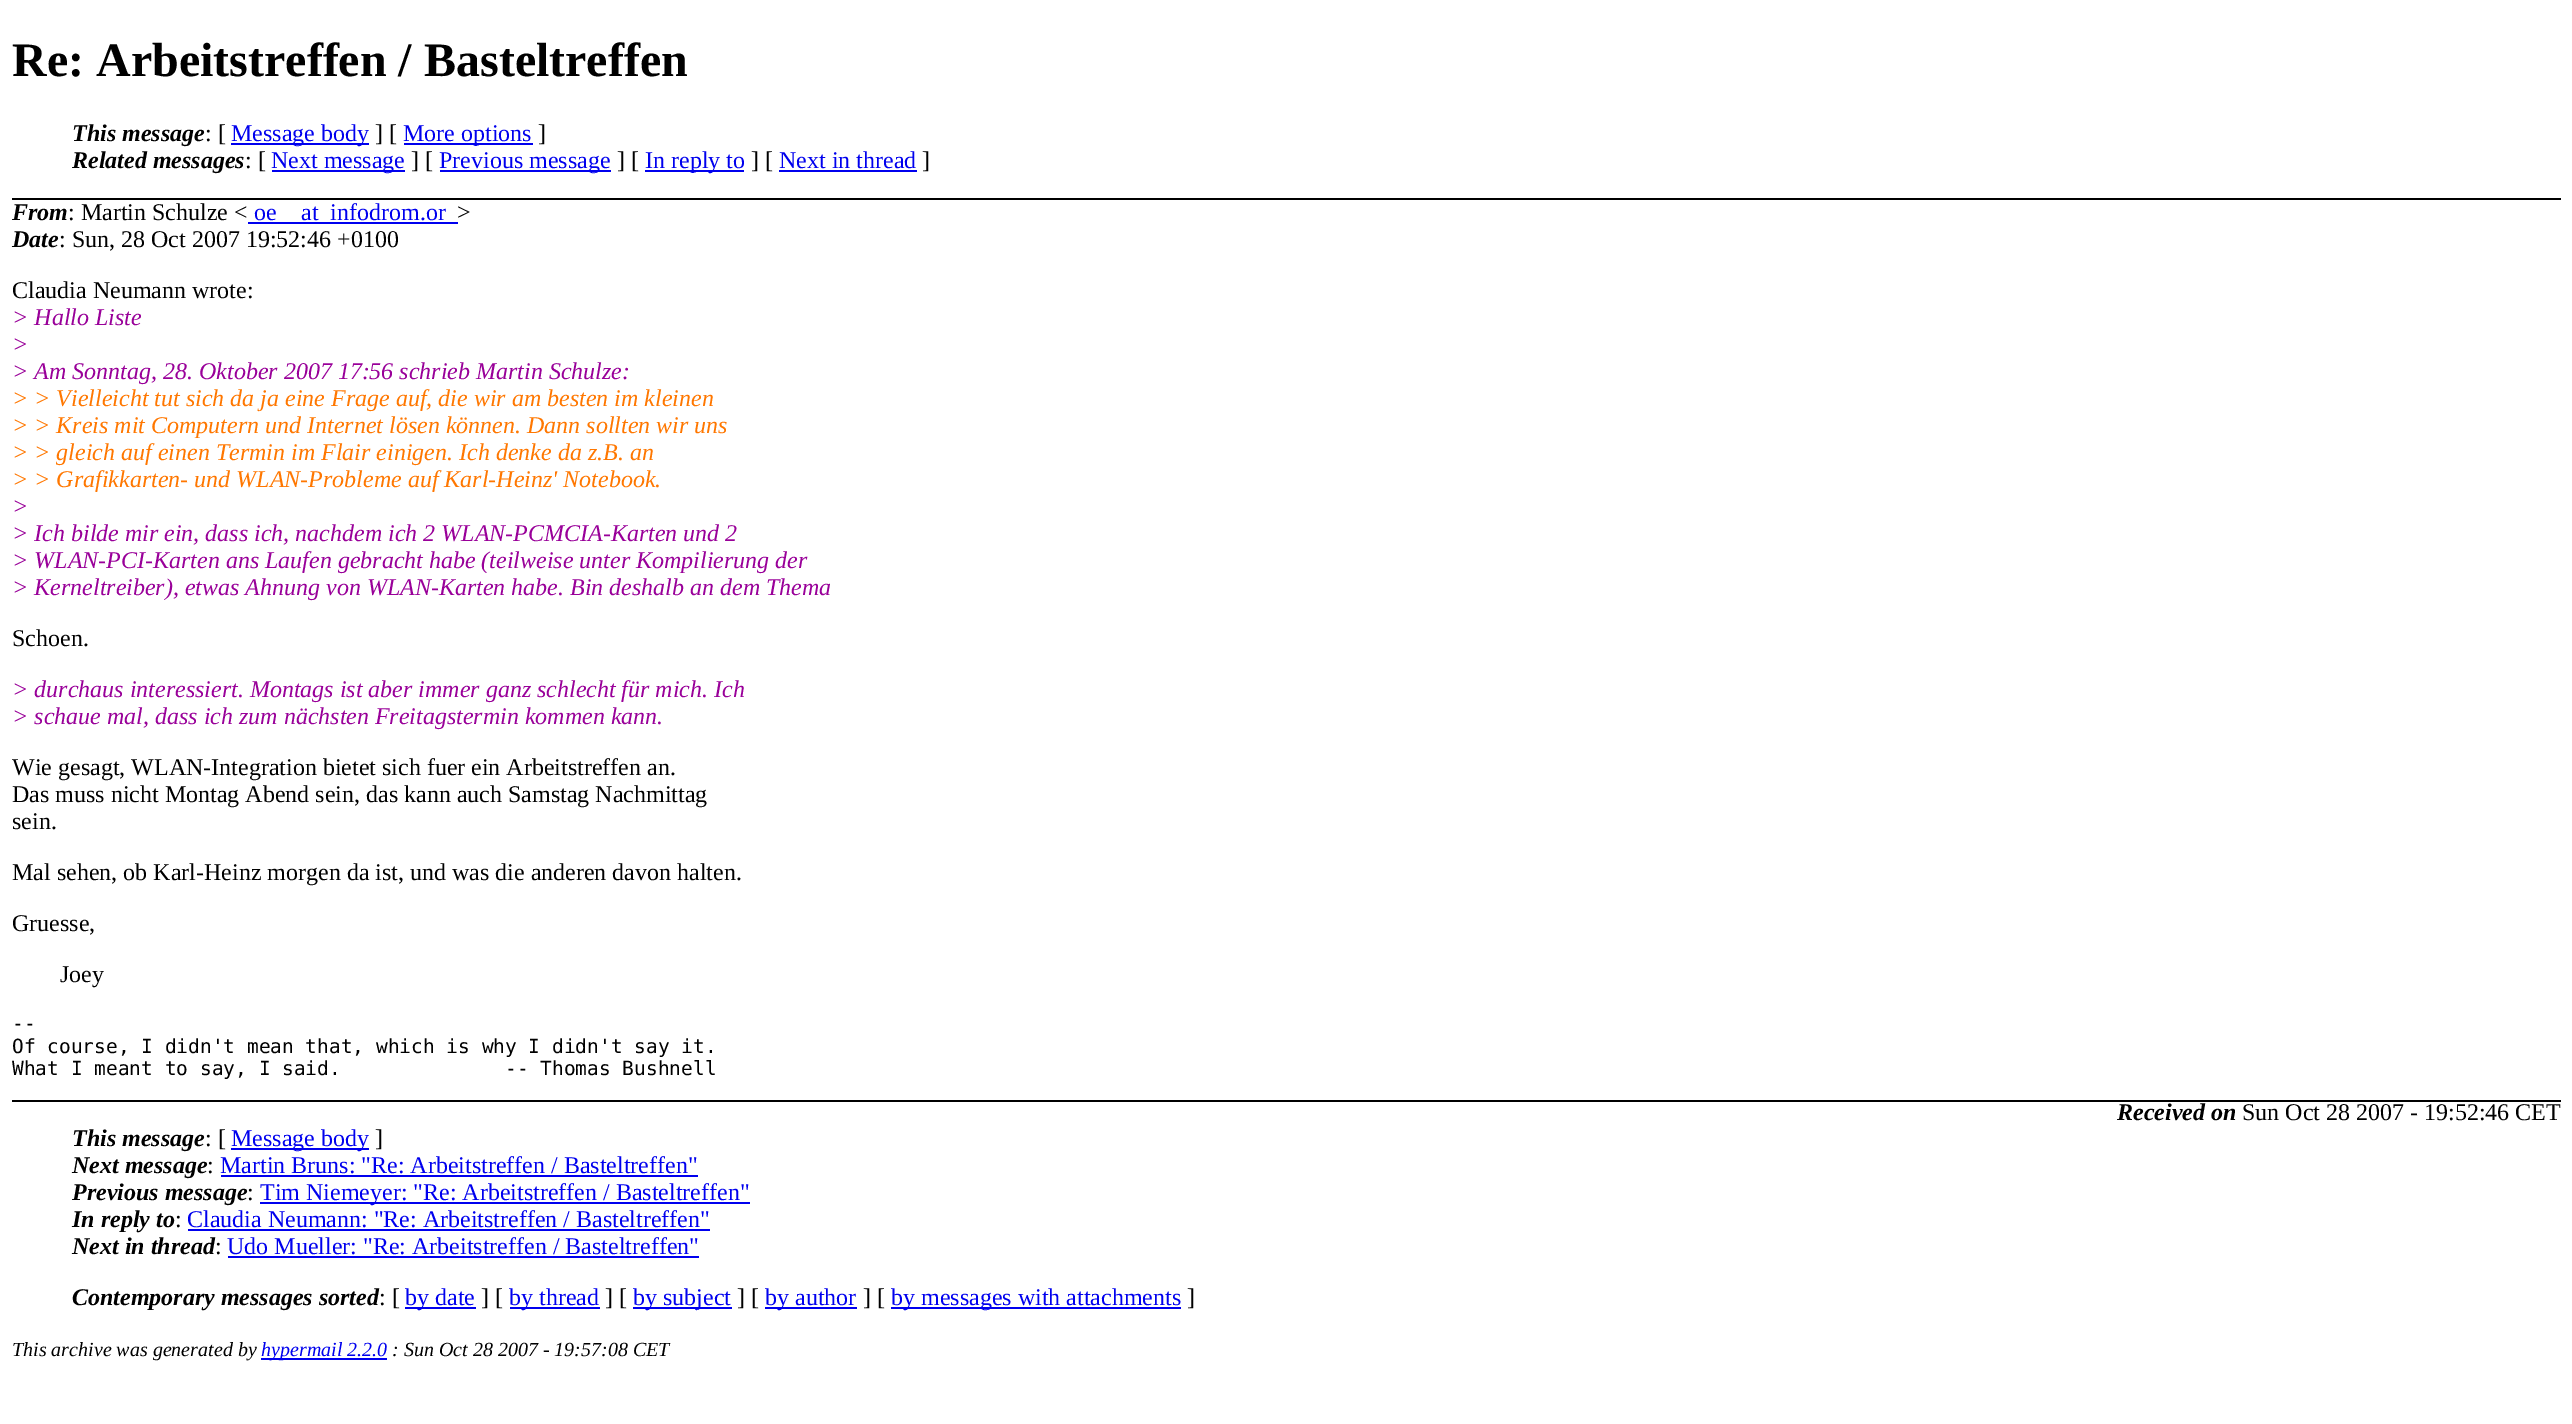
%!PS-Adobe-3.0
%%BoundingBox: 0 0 2572 1424
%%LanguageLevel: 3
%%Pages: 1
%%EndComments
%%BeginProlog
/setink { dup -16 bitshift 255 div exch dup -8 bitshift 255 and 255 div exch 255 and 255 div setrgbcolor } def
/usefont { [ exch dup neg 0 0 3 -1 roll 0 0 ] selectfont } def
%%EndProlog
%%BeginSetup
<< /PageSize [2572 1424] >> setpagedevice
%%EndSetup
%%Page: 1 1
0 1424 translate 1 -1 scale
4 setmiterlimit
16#FFFFFF setink
0 0 2572 1424 rectfill
16#000000 setink
12 198 2549 2 rectfill
/LiberationSerif-Bold 48 usefont
12 76 moveto (Re: Arbeitstreffen / Basteltreffen) show
/LiberationSerif-BoldItalic 24 usefont
72 141 moveto (This message) show
/LiberationSerif-Regular 24 usefont
205 141 moveto (: [) show
16#0000EE setink
231 143 138 2 rectfill
231 141 moveto (Message body) show
16#000000 setink
375 141 moveto (] [) show
16#0000EE setink
404 143 129 2 rectfill
403 141 moveto (More options) show
16#000000 setink
538 141 moveto (]) show
/LiberationSerif-BoldItalic 24 usefont
72 168 moveto (Related messages) show
/LiberationSerif-Regular 24 usefont
245 168 moveto (: [) show
16#0000EE setink
272 170 133 2 rectfill
271 168 moveto (Next message) show
16#000000 setink
411 168 moveto (] [) show
16#0000EE setink
440 170 171 2 rectfill
439 168 moveto (Previous message) show
16#000000 setink
617 168 moveto (] [) show
16#0000EE setink
645 170 99 2 rectfill
645 168 moveto (In reply to) show
16#000000 setink
751 168 moveto (] [) show
16#0000EE setink
779 168 moveto (Next in thread) show
779 170 138 2 rectfill
16#000000 setink
922 168 moveto (]) show
/LiberationSerif-BoldItalic 24 usefont
12 220 moveto (From) show
/LiberationSerif-Regular 24 usefont
68 220 moveto (: Martin Schulze <) show
16#0000EE setink
254 220 moveto (oe) show
248 222 210 2 rectfill
301 220 moveto (at_infodrom.or) show
16#000000 setink
457 220 moveto (>) show
/LiberationSerif-BoldItalic 24 usefont
12 247 moveto (Date) show
/LiberationSerif-Regular 24 usefont
59 247 moveto (: Sun, 28 Oct 2007 19:52:46 +0100) show
12 298 moveto (Claudia Neumann wrote:) show
/LiberationSerif-Italic 24 usefont
16#990099 setink
[
    [(> Hallo Liste) 12 325]
    [(>) 12 352]
    [(> Am Sonntag, 28. Oktober 2007 17:56 schrieb Martin Schulze:) 12 379]
] { aload pop moveto show } forall
16#FF7700 setink
[
    [(> > Vielleicht tut sich da ja eine Frage auf, die wir am besten im kleinen) 12 406]
    [(> > Kreis mit Computern und Internet lösen können. Dann sollten wir uns) 12 433]
    [(> > gleich auf einen Termin im Flair einigen. Ich denke da z.B. an) 12 460]
    [(> > Grafikkarten- und WLAN-Probleme auf Karl-Heinz' Notebook.) 12 487]
] { aload pop moveto show } forall
16#990099 setink
[
    [(>) 12 514]
    [(> Ich bilde mir ein, dass ich, nachdem ich 2 WLAN-PCMCIA-Karten und 2) 12 541]
    [(> WLAN-PCI-Karten ans Laufen gebracht habe \(teilweise unter Kompilierung der) 12 568]
    [(> Kerneltreiber\), etwas Ahnung von WLAN-Karten habe. Bin deshalb an dem Thema) 12 595]
] { aload pop moveto show } forall
/LiberationSerif-Regular 24 usefont
16#000000 setink
12 646 moveto (Schoen.) show
/LiberationSerif-Italic 24 usefont
16#990099 setink
12 697 moveto (> durchaus interessiert. Montags ist aber immer ganz schlecht für mich. Ich) show
12 724 moveto (> schaue mal, dass ich zum nächsten Freitagstermin kommen kann.) show
/LiberationSerif-Regular 24 usefont
16#000000 setink
[
    [(Wie gesagt, WLAN-Integration bietet sich fuer ein Arbeitstreffen an.) 12 775]
    [(Das muss nicht Montag Abend sein, das kann auch Samstag Nachmittag) 12 802]
    [(sein.) 12 829]
    [(Mal sehen, ob Karl-Heinz morgen da ist, und was die anderen davon halten.) 12 880]
    [(Gruesse,) 12 931]
    [(Joey) 60 982]
] { aload pop moveto show } forall
/DejaVuSansMono-Regular 19.5 usefont
[
    [(--) 12 1030]
    [(Of course, I didn't mean that, which is why I didn't say it.) 12 1053]
    [(What I meant to say, I said.              -- Thomas Bushnell) 12 1075]
] { aload pop moveto show } forall
/LiberationSerif-BoldItalic 24 usefont
2117 1120 moveto (Received on) show
/LiberationSerif-Regular 24 usefont
2242 1120 moveto (Sun Oct 28 2007 - 19:52:46 CET) show
12 1100 2549 2 rectfill
/LiberationSerif-BoldItalic 24 usefont
72 1146 moveto (This message) show
/LiberationSerif-Regular 24 usefont
205 1146 moveto (: [) show
16#0000EE setink
231 1148 138 2 rectfill
231 1146 moveto (Message body) show
16#000000 setink
375 1146 moveto (]) show
/LiberationSerif-BoldItalic 24 usefont
72 1173 moveto (Next message) show
/LiberationSerif-Regular 24 usefont
207 1173 moveto (:) show
16#0000EE setink
220 1173 moveto (Martin Bruns: "Re: Arbeitstreffen / Basteltreffen") show
221 1175 477 2 rectfill
/LiberationSerif-BoldItalic 24 usefont
16#000000 setink
72 1200 moveto (Previous message) show
/LiberationSerif-Regular 24 usefont
247 1200 moveto (:) show
16#0000EE setink
260 1202 490 2 rectfill
260 1200 moveto (Tim Niemeyer: "Re: Arbeitstreffen / Basteltreffen") show
/LiberationSerif-BoldItalic 24 usefont
16#000000 setink
72 1227 moveto (In reply to) show
/LiberationSerif-Regular 24 usefont
175 1227 moveto (:) show
16#0000EE setink
187 1227 moveto (Claudia Neumann: "Re: Arbeitstreffen / Basteltreffen") show
188 1229 522 2 rectfill
/LiberationSerif-BoldItalic 24 usefont
16#000000 setink
72 1254 moveto (Next in thread) show
/LiberationSerif-Regular 24 usefont
215 1254 moveto (:) show
16#0000EE setink
227 1254 moveto (Udo Mueller: "Re: Arbeitstreffen / Basteltreffen") show
228 1256 471 2 rectfill
/LiberationSerif-BoldItalic 24 usefont
16#000000 setink
72 1305 moveto (Contemporary messages sorted) show
/LiberationSerif-Regular 24 usefont
379 1305 moveto (: [) show
16#0000EE setink
405 1307 71 2 rectfill
405 1305 moveto (by date) show
16#000000 setink
481 1305 moveto (] [) show
16#0000EE setink
510 1307 90 2 rectfill
509 1305 moveto (by thread) show
16#000000 setink
605 1305 moveto (] [) show
16#0000EE setink
633 1307 99 2 rectfill
633 1305 moveto (by subject) show
16#000000 setink
737 1305 moveto (] [) show
16#0000EE setink
765 1307 92 2 rectfill
765 1305 moveto (by author) show
16#000000 setink
863 1305 moveto (] [) show
16#0000EE setink
891 1307 290 2 rectfill
891 1305 moveto (by messages with attachments) show
16#000000 setink
1187 1305 moveto (]) show
/LiberationSerif-Italic 20 usefont
12 1356 moveto (This archive was generated by) show
16#0000EE setink
261 1358 126 2 rectfill
261 1356 moveto (hypermail 2.2.0) show
16#000000 setink
392 1356 moveto (: Sun Oct 28 2007 - 19:57:08 CET) show
showpage
%%EOF
